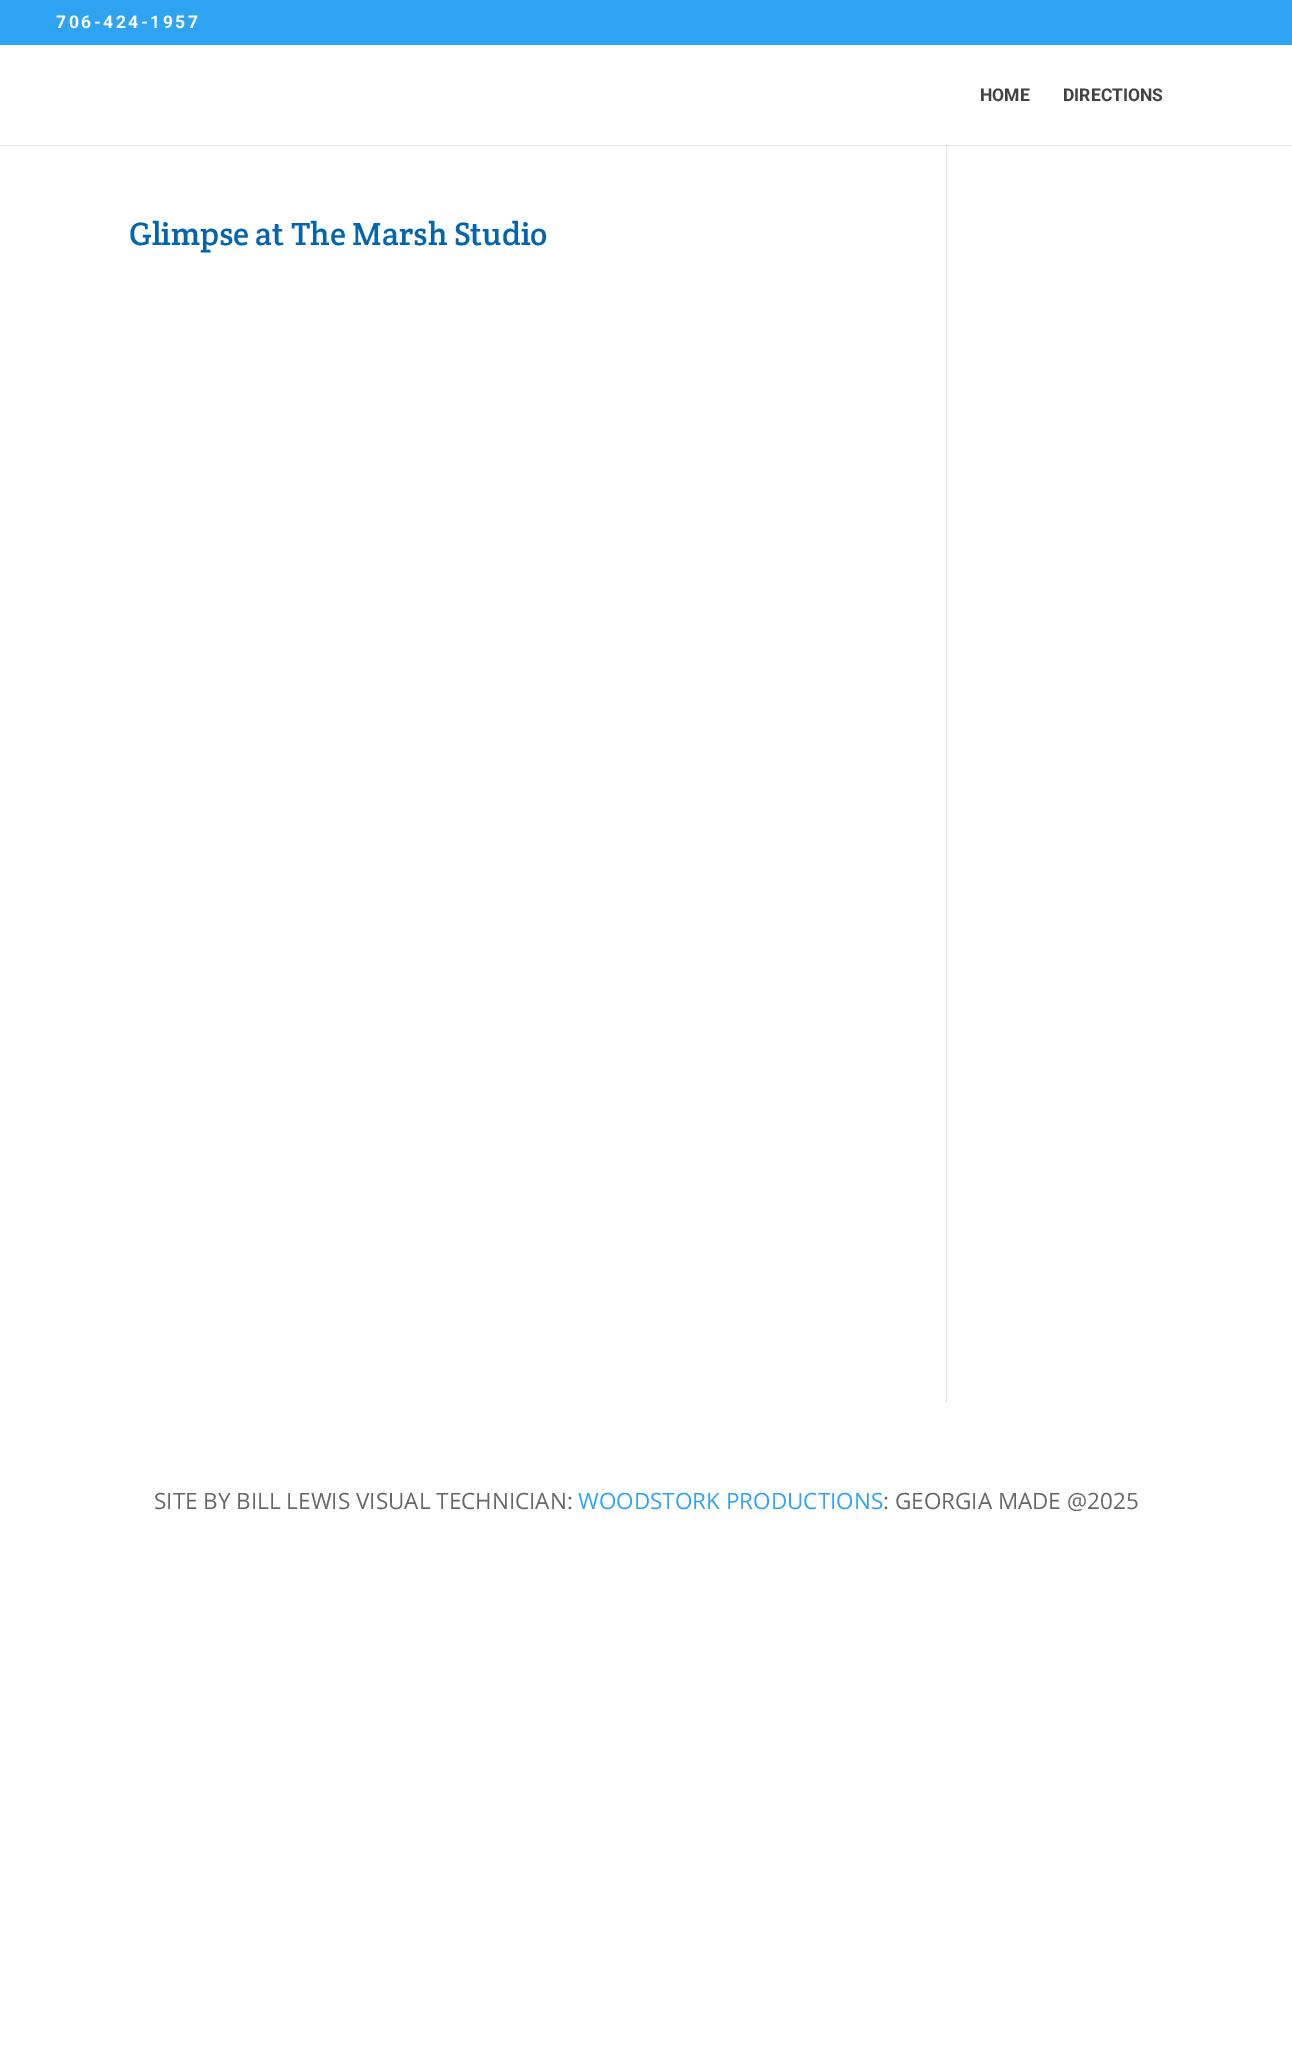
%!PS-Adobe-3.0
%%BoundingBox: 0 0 1292 2061
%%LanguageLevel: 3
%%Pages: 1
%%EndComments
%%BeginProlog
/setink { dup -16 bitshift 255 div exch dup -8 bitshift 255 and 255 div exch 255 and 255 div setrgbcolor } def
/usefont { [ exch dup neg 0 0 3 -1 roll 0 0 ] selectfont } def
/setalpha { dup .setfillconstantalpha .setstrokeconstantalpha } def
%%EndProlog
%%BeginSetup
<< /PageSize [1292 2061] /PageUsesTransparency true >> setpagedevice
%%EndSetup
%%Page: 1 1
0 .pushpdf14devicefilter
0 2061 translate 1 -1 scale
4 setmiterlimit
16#FFFFFF setink
0 0 1292 2061 rectfill
16#2EA3F2 setink
0 0 1292 45 rectfill
/Roboto-Bold 17.5 usefont
16#FFFFFF setink
56 28 moveto 2.5 0 (706-424-1957) ashow
16#E2E2E2 setink
946 145 1 1258 rectfill
0.1 setalpha
16#000000 setink
0 145 moveto 0 146 lineto 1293 146 lineto 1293 46 lineto 1292 46 lineto 1292 145 lineto closepath fill
1 setalpha
16#424242 setink
980 101 moveto (HOME) show
1063 101 moveto (DIRECTIONS) show
/CreteRound-Regular 32.5 usefont
16#0365AF setink
129 245 moveto (Glimpse at The Marsh Studio) show
/OpenSans-Regular 22.5 usefont
16#666666 setink
154 1509 moveto (SITE BY BILL LEWIS VISUAL TECHNICIAN:) show
16#2EA3F2 setink
578 1509 moveto (WOODSTORK PRODUCTIONS) show
16#666666 setink
883 1509 moveto (: GEORGIA MADE @2025) show
.poppdf14devicefilter showpage
%%EOF
